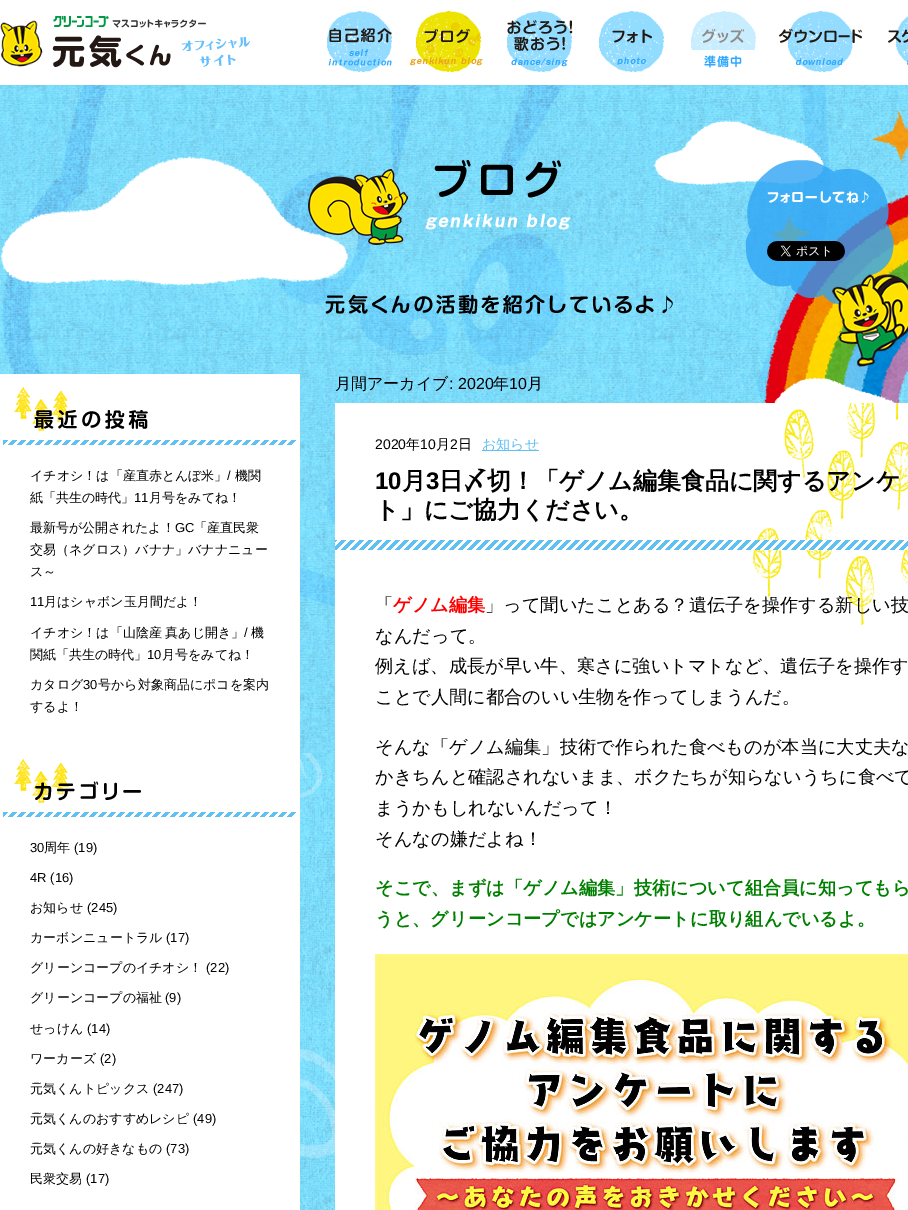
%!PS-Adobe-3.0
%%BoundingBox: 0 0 908 1210
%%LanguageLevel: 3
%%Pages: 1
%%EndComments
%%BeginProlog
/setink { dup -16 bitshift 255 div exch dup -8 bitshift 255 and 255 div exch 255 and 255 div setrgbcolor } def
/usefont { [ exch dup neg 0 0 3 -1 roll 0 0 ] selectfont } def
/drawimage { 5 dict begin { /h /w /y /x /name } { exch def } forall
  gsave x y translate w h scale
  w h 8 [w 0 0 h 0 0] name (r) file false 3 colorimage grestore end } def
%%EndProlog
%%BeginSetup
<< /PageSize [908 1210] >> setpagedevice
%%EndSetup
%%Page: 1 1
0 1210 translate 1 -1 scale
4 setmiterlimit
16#FFFFFF setink
0 0 908 1210 rectfill
(img1.raw) 300 753 35 457 drawimage
(img2.raw) 0 85 908 668 drawimage
(img3.raw) 0 156 349 130 drawimage
(img4.raw) 654 120 171 66 drawimage
(img15.raw) 764 110 144 293 drawimage
(img5.raw) 745 160 163 207 drawimage
(img6.raw) 767 241 78 20 drawimage
(img7.raw) 0 16 250 52 drawimage
(img8.raw) 327 11 65 61 drawimage
(img9.raw) 410 11 73 61 drawimage
(img10.raw) 507 11 66 61 drawimage
(img11.raw) 599 11 65 61 drawimage
(img12.raw) 691 11 65 57 drawimage
(img13.raw) 779 11 83 61 drawimage
(img14.raw) 888 16 20 49 drawimage
(img16.raw) 308 160 365 154 drawimage
0 374 300 379 rectfill
(img17.raw) 3 387 293 58 drawimage
/WenQuanYiZenHei-Medium 13 usefont
16#000000 setink
30 480 moveto (イチオシ！は「産直赤とんぼ米」) show
/LiberationSans-Regular 13 usefont
227 480 moveto (/) show
/WenQuanYiZenHei-Medium 13 usefont
235 480 moveto (機関) show
30 502 moveto (紙「共生の時代」) show
/LiberationSans-Regular 13 usefont
134 502 moveto (11) show
/WenQuanYiZenHei-Medium 13 usefont
149 502 moveto (月号をみてね！) show
30 532 moveto (最新号が公開されたよ！) show
/LiberationSans-Regular 13 usefont
175 532 moveto (GC) show
/WenQuanYiZenHei-Medium 13 usefont
[
    [(「産直民衆) 194 532]
    [(交易（ネグロス）バナナ」バナナニュー) 30 554]
    [(ス～) 30 576]
] { aload pop moveto show } forall
/LiberationSans-Regular 13 usefont
30 606 moveto (11) show
/WenQuanYiZenHei-Medium 13 usefont
44 606 moveto (月はシャボン玉月間だよ！) show
30 637 moveto (イチオシ！は「山陰産 真あじ開き」) show
/LiberationSans-Regular 13 usefont
244 637 moveto (/) show
/WenQuanYiZenHei-Medium 13 usefont
251 637 moveto (機) show
30 659 moveto (関紙「共生の時代」) show
/LiberationSans-Regular 13 usefont
147 659 moveto (10) show
/WenQuanYiZenHei-Medium 13 usefont
162 659 moveto (月号をみてね！) show
30 689 moveto (カタログ) show
/LiberationSans-Regular 13 usefont
83 689 moveto (30) show
/WenQuanYiZenHei-Medium 13 usefont
98 689 moveto (号から対象商品にポコを案内) show
30 711 moveto (するよ！) show
(img18.raw) 3 759 293 58 drawimage
/LiberationSans-Regular 13 usefont
30 852 moveto (30) show
/WenQuanYiZenHei-Medium 13 usefont
44 852 moveto (周年) show
/LiberationSans-Regular 13 usefont
74 852 moveto (\(19\)) show
30 882 moveto (4R \(16\)) show
/WenQuanYiZenHei-Medium 13 usefont
30 912 moveto (お知らせ) show
/LiberationSans-Regular 13 usefont
87 912 moveto (\(245\)) show
/WenQuanYiZenHei-Medium 13 usefont
30 942 moveto (カーボンニュートラル) show
/LiberationSans-Regular 13 usefont
166 942 moveto (\(17\)) show
/WenQuanYiZenHei-Medium 13 usefont
30 972 moveto (グリーンコープのイチオシ！) show
/LiberationSans-Regular 13 usefont
206 972 moveto (\(22\)) show
/WenQuanYiZenHei-Medium 13 usefont
30 1002 moveto (グリーンコープの福祉) show
/LiberationSans-Regular 13 usefont
165 1002 moveto (\(9\)) show
/WenQuanYiZenHei-Medium 13 usefont
30 1033 moveto (せっけん) show
/LiberationSans-Regular 13 usefont
87 1033 moveto (\(14\)) show
/WenQuanYiZenHei-Medium 13 usefont
30 1063 moveto (ワーカーズ) show
/LiberationSans-Regular 13 usefont
100 1063 moveto (\(2\)) show
/WenQuanYiZenHei-Medium 13 usefont
30 1093 moveto (元気くんトピックス) show
/LiberationSans-Regular 13 usefont
153 1093 moveto (\(247\)) show
/WenQuanYiZenHei-Medium 13 usefont
30 1123 moveto (元気くんのおすすめレシピ) show
/LiberationSans-Regular 13 usefont
193 1123 moveto (\(49\)) show
/WenQuanYiZenHei-Medium 13 usefont
30 1153 moveto (元気くんの好きなもの) show
/LiberationSans-Regular 13 usefont
166 1153 moveto (\(73\)) show
/WenQuanYiZenHei-Medium 13 usefont
30 1183 moveto (民衆交易) show
/LiberationSans-Regular 13 usefont
86 1183 moveto (\(17\)) show
/WenQuanYiZenHei-Medium 16 usefont
335 389 moveto (月間アーカイブ) show
/LiberationSans-Regular 16 usefont
449 389 moveto (: 2020) show
/WenQuanYiZenHei-Medium 16 usefont
493 389 moveto (年) show
/LiberationSans-Regular 16 usefont
509 389 moveto (10) show
/WenQuanYiZenHei-Medium 16 usefont
527 389 moveto (月) show
16#FFFFFF setink
335 403 573 350 rectfill
(img19.raw) 753 403 155 222 drawimage
(img20.raw) 335 540 573 10 drawimage
/LiberationSans-Regular 14 usefont
16#000000 setink
375 449 moveto (2020) show
/WenQuanYiZenHei-Medium 14 usefont
406 449 moveto (年) show
/LiberationSans-Regular 14 usefont
420 449 moveto (10) show
/WenQuanYiZenHei-Medium 14 usefont
436 449 moveto (月) show
/LiberationSans-Regular 14 usefont
450 449 moveto (2) show
/WenQuanYiZenHei-Medium 14 usefont
458 449 moveto (日) show
16#60C0F1 setink
482 450 57 1 rectfill
482 449 moveto (お知らせ) show
/LiberationSans-Bold 24 usefont
16#000000 setink
375 489 moveto (10) show
/WenQuanYiZenHei-Bold 24 usefont
402 489 moveto (月) show
/LiberationSans-Bold 24 usefont
426 489 moveto (3) show
/WenQuanYiZenHei-Bold 24 usefont
439 489 moveto (日〆切！「ゲノム編集食品に関するアンケ) show
375 518 moveto (ト」にご協力ください。) show
/WenQuanYiZenHei-Medium 18.2 usefont
375 611 moveto (「) show
/WenQuanYiZenHei-Bold 18.2 usefont
16#FF0000 setink
393 611 moveto (ゲノム編集) show
/WenQuanYiZenHei-Medium 18.2 usefont
16#000000 setink
[
    [(」って聞いたことある？遺伝子を操作する新しい技) 485 611]
    [(なんだって。) 375 642]
    [(例えば、成長が早い牛、寒さに強いトマトなど、遺伝子を操作す) 375 672]
    [(ことで人間に都合のいい生物を作ってしまうんだ。) 375 703]
    [(そんな「ゲノム編集」技術で作られた食べものが本当に大丈夫な) 375 753]
    [(かきちんと確認されないまま、ボクたちが知らないうちに食べて) 375 783]
    [(まうかもしれないんだって！) 375 814]
    [(そんなの嫌だよね！) 375 845]
] { aload pop moveto show } forall
/WenQuanYiZenHei-Bold 18.2 usefont
16#008000 setink
375 894 moveto (そこで、まずは「ゲノム編集」技術について組合員に知ってもら) show
375 925 moveto (うと、グリーンコープではアンケートに取り組んでいるよ。) show
(img21.raw) 375 954 533 256 drawimage
showpage
%%EOF
